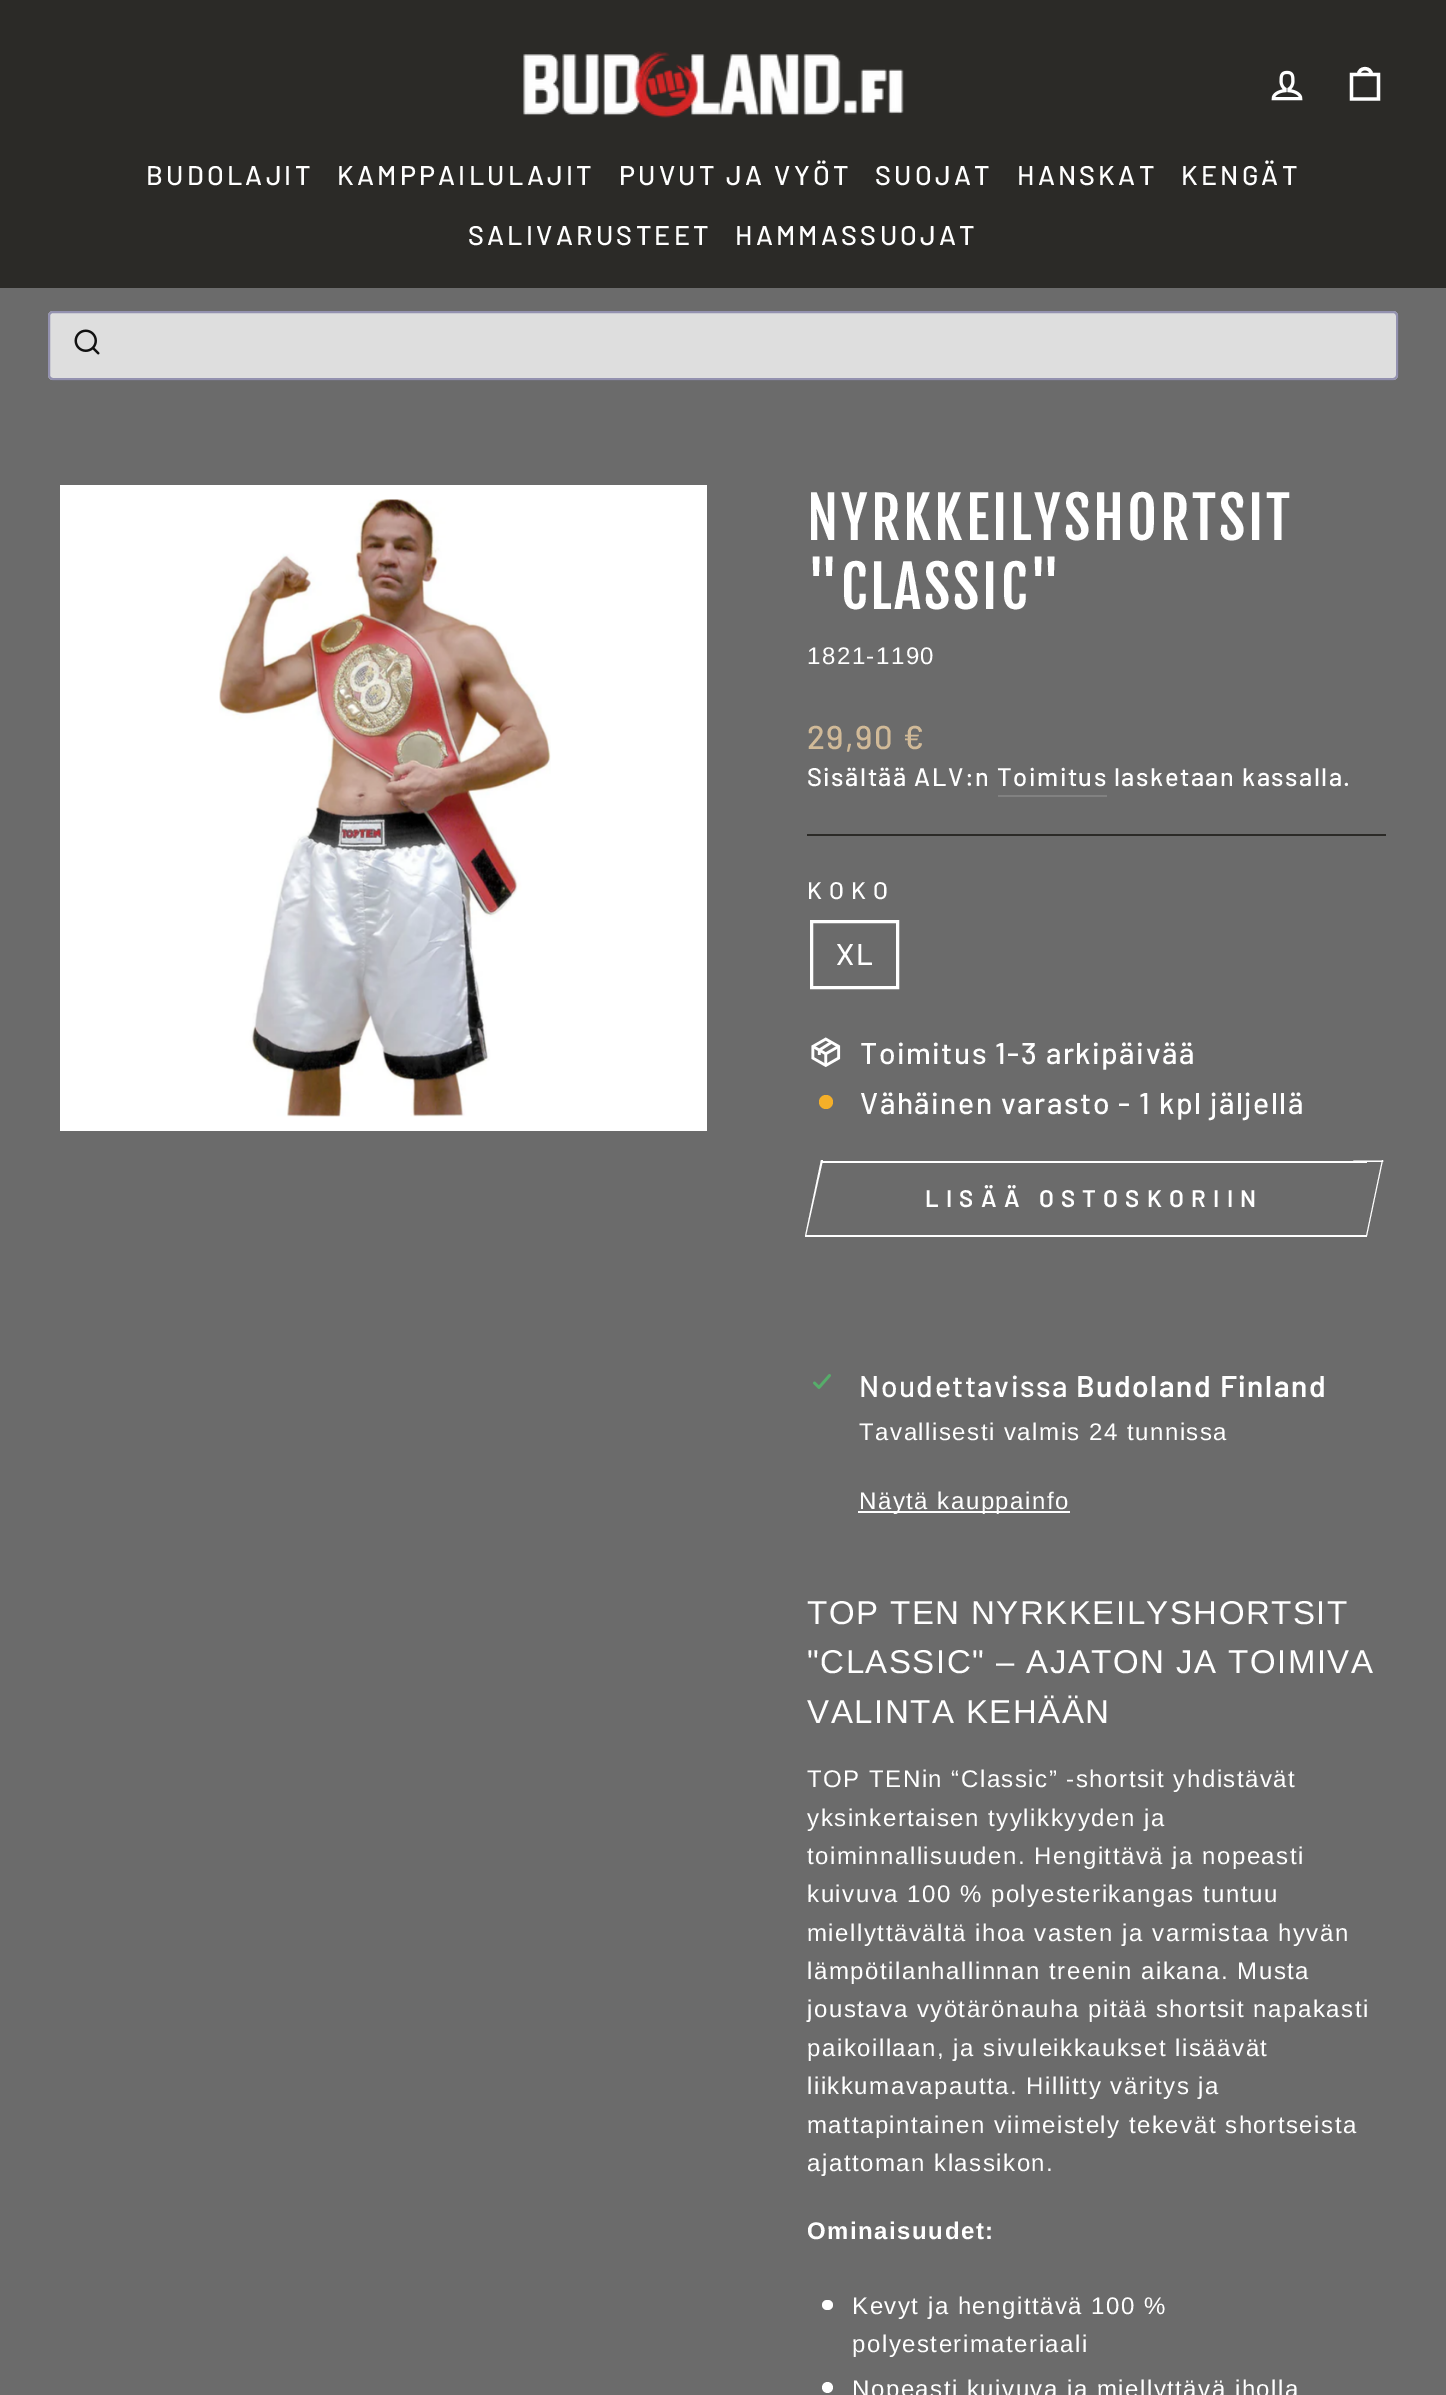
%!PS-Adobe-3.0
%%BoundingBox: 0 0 1446 2395
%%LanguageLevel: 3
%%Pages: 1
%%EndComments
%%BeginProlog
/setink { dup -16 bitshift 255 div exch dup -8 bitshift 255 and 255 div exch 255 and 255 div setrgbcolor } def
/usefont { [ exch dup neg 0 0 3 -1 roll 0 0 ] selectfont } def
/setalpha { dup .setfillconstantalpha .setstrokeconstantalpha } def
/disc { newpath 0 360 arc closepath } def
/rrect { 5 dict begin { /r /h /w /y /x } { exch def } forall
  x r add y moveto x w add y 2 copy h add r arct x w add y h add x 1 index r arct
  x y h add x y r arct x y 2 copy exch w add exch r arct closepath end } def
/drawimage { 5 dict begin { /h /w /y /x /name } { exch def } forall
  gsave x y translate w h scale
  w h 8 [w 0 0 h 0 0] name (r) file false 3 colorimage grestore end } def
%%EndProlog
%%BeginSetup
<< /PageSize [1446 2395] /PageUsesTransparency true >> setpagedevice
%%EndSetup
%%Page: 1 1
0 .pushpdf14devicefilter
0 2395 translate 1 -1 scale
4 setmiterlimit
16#6B6B6B setink
0 0 1446 2395 rectfill
16#2B2A27 setink
0 0 1446 288 rectfill
(img1.raw) 523 51 381 67 drawimage
(img2.raw) 1271 70 32 31 drawimage
16#FFFFFF setink
3.3 setlinewidth
1351.5 74.5 moveto 1378.5 74.5 lineto 1378.5 99 lineto 1351.5 99 lineto closepath 1358.5 75 moveto 1358.5 66.5 1371.5 66.5 1371.5 75 curveto stroke
/Barlow-Medium 27 usefont
146 185 moveto 3.25 0 (BUDOLAJIT) ashow
337 185 moveto 3.25 0 (KAMPPAILULAJIT) ashow
619 185 moveto 3.25 0 (PUVUT JA VYÖT) ashow
875 185 moveto 3.25 0 (SUOJAT) ashow
1017 185 moveto 3.25 0 (HANSKAT) ashow
1181 185 moveto 3.25 0 (KENGÄT) ashow
468 245 moveto 3.25 0 (SALIVARUSTEET) ashow
735 245 moveto 3.25 0 (HAMMASSUOJAT) ashow
16#DEDEDE setink
48 311 1350 69 5 rrect fill
0.8 setalpha
16#807EA3 setink
2 setlinewidth
49 312 1348 67 4 rrect stroke
1 setalpha
(img3.raw) 74 329 26 26 drawimage
16#FFFFFF setink
60 485 647 646 rectfill
(img4.raw) 219 499 332 618 drawimage
/FjallaOne-Regular 57.4 usefont
807 540 moveto 2.9 0 (NYRKKEILYSHORTSIT) ashow
807 609 moveto 2.9 0 ("CLASSIC") ashow
/LiberationSans-Regular 24 usefont
807 664 moveto 1.5 0 (1821-1190) ashow
/Barlow-Medium 33 usefont
16#D1BA98 setink
807 749 moveto 1.5 0 (29,90 €) ashow
/Barlow-Medium 25.5 usefont
16#FFFFFF setink
807 786 moveto 1.5 0 (Sisältää ALV:n Toimitus) ashow
1114 786 moveto 1.5 0 (lasketaan kassalla.) ashow
16#818181 setink
998 795 109 2 rectfill
16#2B2A27 setink
807 834 579 2 rectfill
/Barlow-Medium 24 usefont
16#FFFFFF setink
807 899 moveto 7.25 0 (KOKO) ashow
3 setlinewidth
811.5 921.5 86 66 rectstroke
/Barlow-Medium 30 usefont
836 965 moveto 1.5 0 (XL) ashow
(img5.raw) 811 1037 30 30 drawimage
860 1064 moveto 1.5 0 (Toimitus 1-3 arkipäivää) ashow
16#F4AF29 setink
826 1102 7 disc fill
16#FFFFFF setink
860 1114 moveto 1.5 0 (Vähäinen varasto - 1 kpl jäljellä) ashow
822 1161 545 2 rectfill
805 1235 562 2 rectfill
821 1160 moveto 823 1160 lineto 806 1236 lineto 805 1236 lineto closepath fill
/Barlow-SemiBold 24 usefont
925 1207 moveto 7.25 0 (LISÄÄ OSTOSKORIIN) ashow
1353.5 1160.5 moveto 1383.5 1160.5 lineto 1383 1162 lineto 1353 1162 lineto closepath fill
1382 1160 moveto 1383 1160 lineto 1367 1236 lineto 1366 1236 lineto closepath fill
(img6.raw) 813 1374 18 15 drawimage
/Barlow-Medium 30 usefont
859 1397 moveto 1.5 0 (Noudettavissa) ashow
/Barlow-SemiBold 30 usefont
1076 1397 moveto 1.5 0 (Budoland Finland) ashow
/LiberationSans-Regular 24 usefont
859 1440 moveto 1.5 0 (Tavallisesti valmis 24 tunnissa) ashow
858 1511 212 2 rectfill
859 1509 moveto 1.5 0 (Näytä kauppainfo) ashow
/LiberationSans-Regular 33 usefont
807 1624 moveto 1.5 0 (TOP TEN NYRKKEILYSHORTSIT) ashow
807 1673 moveto 1.5 0 ("CLASSIC" – AJATON JA TOIMIVA) ashow
807 1723 moveto 1.5 0 (VALINTA KEHÄÄN) ashow
/LiberationSans-Regular 24 usefont
807 1787 moveto 1.5 0 (TOP TENin “Classic” -shortsit yhdistävät) ashow
807 1826 moveto 1.5 0 (yksinkertaisen tyylikkyyden ja) ashow
807 1864 moveto 1.5 0 (toiminnallisuuden. Hengittävä ja nopeasti) ashow
807 1902 moveto 1.5 0 (kuivuva 100 % polyesterikangas tuntuu) ashow
807 1941 moveto 1.5 0 (miellyttävältä ihoa vasten ja varmistaa hyvän) ashow
807 1979 moveto 1.5 0 (lämpötilanhallinnan treenin aikana. Musta) ashow
807 2017 moveto 1.5 0 (joustava vyötärönauha pitää shortsit napakasti) ashow
807 2056 moveto 1.5 0 (paikoillaan, ja sivuleikkaukset lisäävät) ashow
807 2094 moveto 1.5 0 (liikkumavapautta. Hillitty väritys ja) ashow
807 2133 moveto 1.5 0 (mattapintainen viimeistely tekevät shortseista) ashow
807 2171 moveto 1.5 0 (ajattoman klassikon.) ashow
/LiberationSans-Bold 24 usefont
807 2239 moveto 1.5 0 (Ominaisuudet:) ashow
822 2300 11 10 5 rrect fill
/LiberationSans-Regular 24 usefont
852 2314 moveto 1.5 0 (Kevyt ja hengittävä 100 %) ashow
852 2352 moveto 1.5 0 (polyesterimateriaali) ashow
827.5 2387.5 5.5 disc fill
852 2397 moveto 1.5 0 (Nopeasti kuivuva ja miellyttävä iholla) ashow
.poppdf14devicefilter showpage
%%EOF
